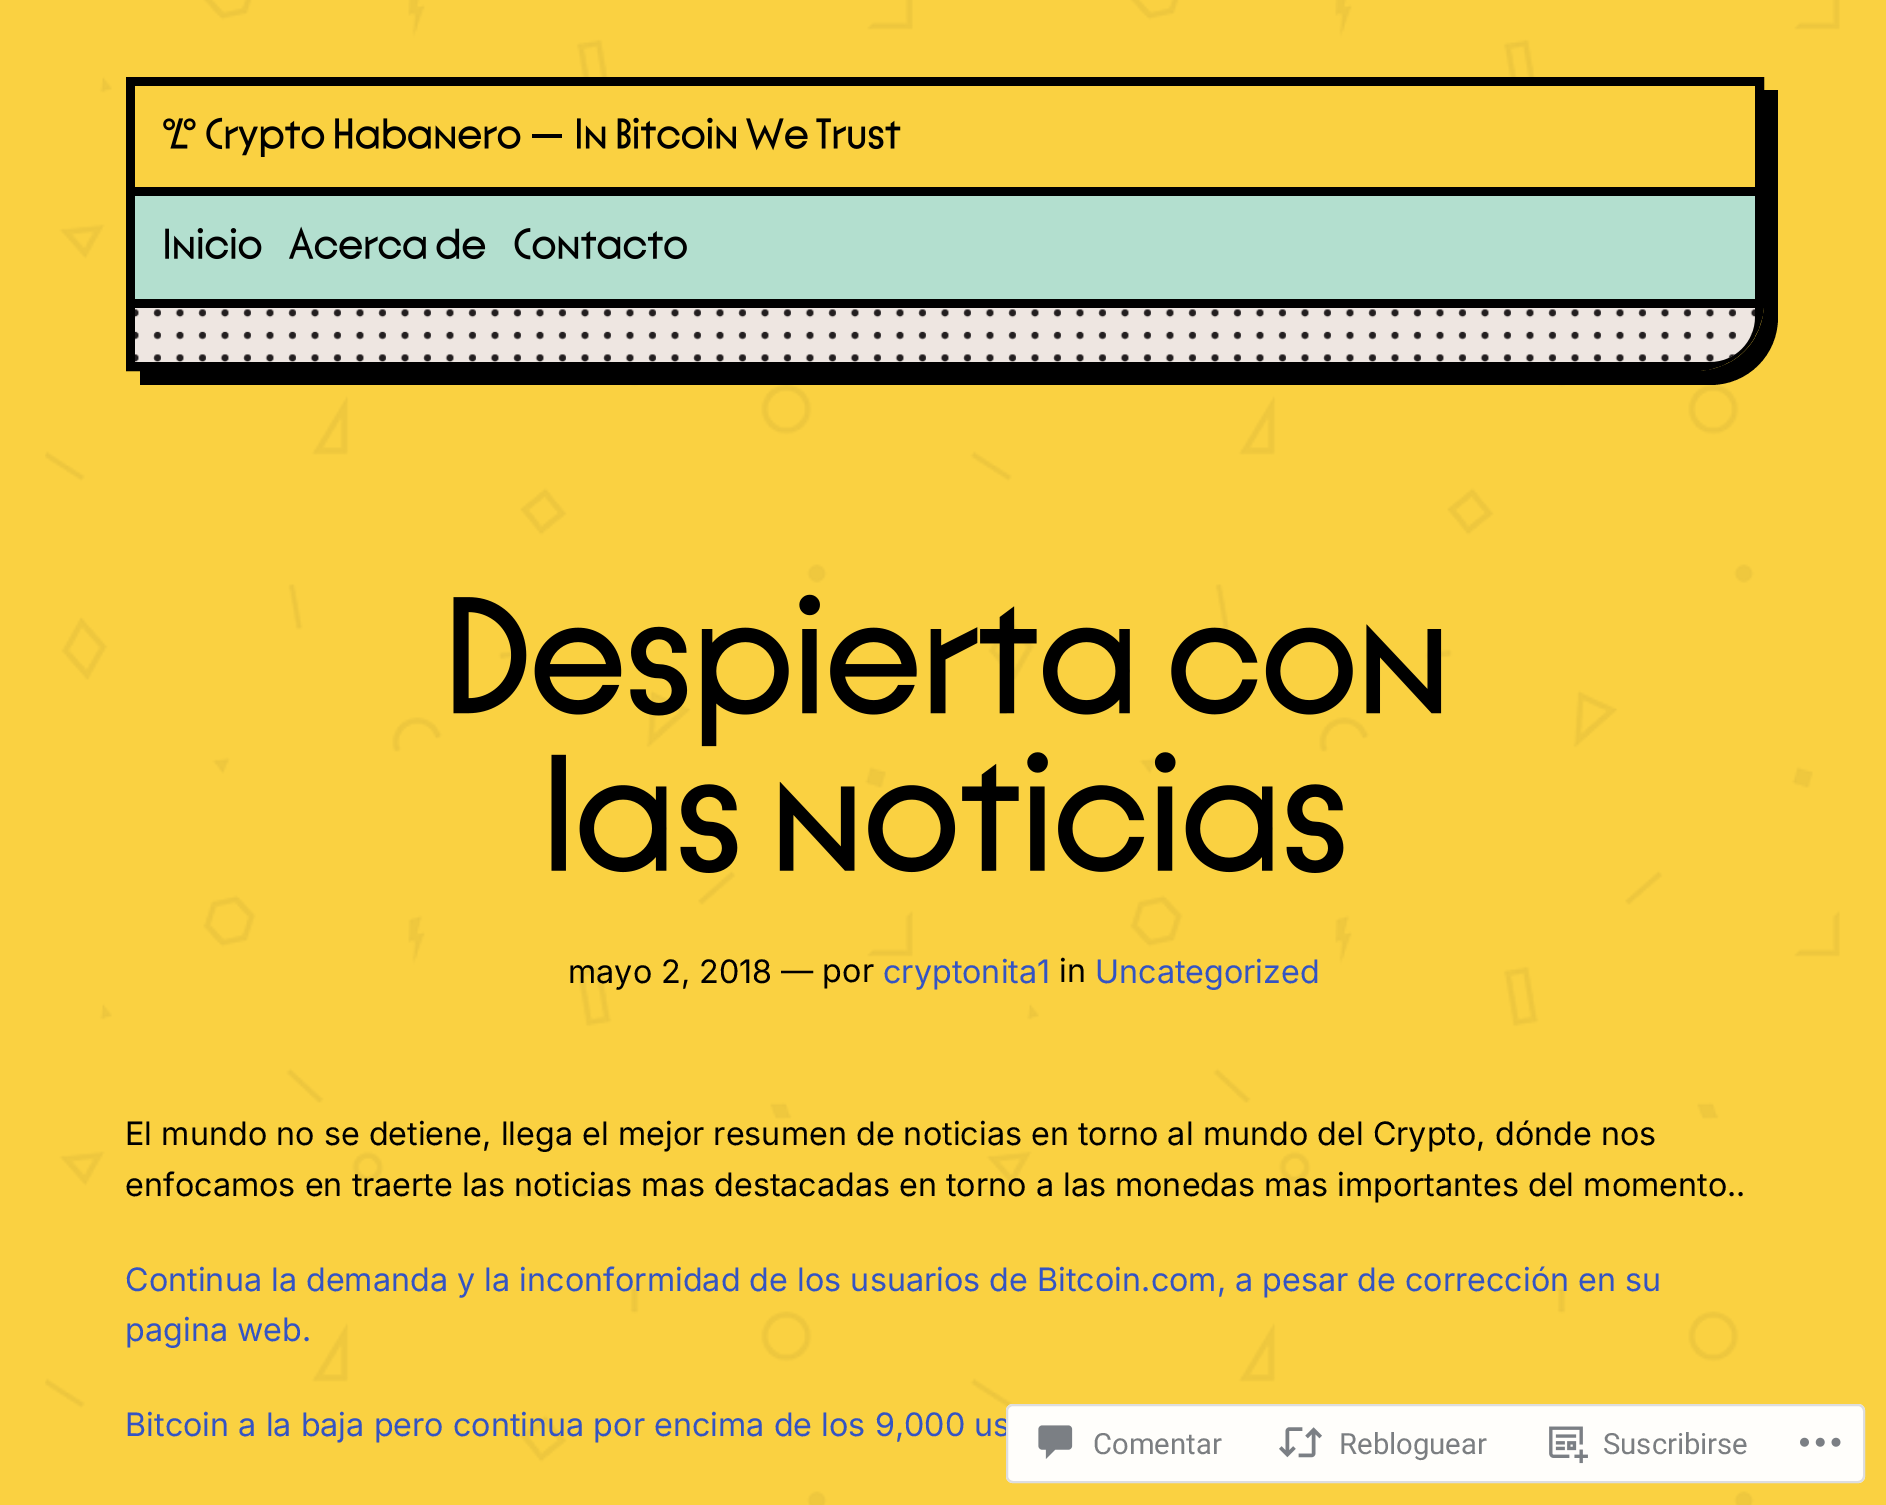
%!PS-Adobe-3.0
%%BoundingBox: 0 0 1886 1505
%%LanguageLevel: 3
%%Pages: 1
%%EndComments
%%BeginProlog
/setink { dup -16 bitshift 255 div exch dup -8 bitshift 255 and 255 div exch 255 and 255 div setrgbcolor } def
/usefont { [ exch dup neg 0 0 3 -1 roll 0 0 ] selectfont } def
/setalpha { dup .setfillconstantalpha .setstrokeconstantalpha } def
/rrect { 5 dict begin { /r /h /w /y /x } { exch def } forall
  x r add y moveto x w add y 2 copy h add r arct x w add y h add x 1 index r arct
  x y h add x y r arct x y 2 copy exch w add exch r arct closepath end } def
/drawimage { 5 dict begin { /h /w /y /x /name } { exch def } forall
  gsave x y translate w h scale
  w h 8 [w 0 0 h 0 0] name (r) file false 3 colorimage grestore end } def
%%EndProlog
%%BeginSetup
<< /PageSize [1886 1505] /PageUsesTransparency true >> setpagedevice
%%EndSetup
%%Page: 1 1
0 .pushpdf14devicefilter
0 1505 translate 1 -1 scale
4 setmiterlimit
16#FAD141 setink
0 0 1886 1505 rectfill
(img1.raw) 45 0 1795 1505 drawimage
16#000000 setink
140 371 moveto 140 385 lineto 1710 385 lineto 1748 385 1778 355 1778 317 curveto 1778 90 lineto 1764 90 lineto 1764 304 lineto 1764 341 1734 371 1696 371 curveto closepath fill
130.5 81.5 moveto 1759.5 81.5 lineto 1759.5 303 lineto 1759.5 338 1731 366.5 1696 366.5 curveto 130.5 366.5 lineto closepath gsave fill grestore
9 setlinewidth
stroke
16#FAD141 setink
135 86 1620 101 rectfill
(img2.raw) 163 118 33 31 drawimage
(img3.raw) 206 117 315 40 drawimage
16#000000 setink
532 134 30 4 rectfill
(img4.raw) 577 117 324 34 drawimage
16#B3DFCF setink
135 196 1620 103 rectfill
(img5.raw) 165 228 97 32 drawimage
(img6.raw) 289 226 197 34 drawimage
(img7.raw) 514 228 173 32 drawimage
16#EEE6E1 setink
135 308 moveto 1755 308 lineto 1755 317 lineto 1755 342 1735 362 1710 362 curveto 135 362 lineto closepath fill
(img8.raw) 135 309 1620 53 drawimage
(img9.raw) 453 594 989 153 drawimage
(img10.raw) 551 752 793 121 drawimage
/Inter-Regular 32.3 usefont
16#000000 setink
568 983 moveto (mayo 2, 2018) show
781 982 moveto (— por) show
16#3454C3 setink
883 983 moveto (cryptonita1) show
16#000000 setink
1059 982 moveto (in) show
16#3454C3 setink
1095 983 moveto (Uncategorized) show
16#000000 setink
125 1145 moveto (El mundo no se detiene, llega el mejor resumen de noticias en torno al mundo del Crypto, dónde nos) show
125 1196 moveto (enfocamos en traerte las noticias mas destacadas en torno a las monedas mas importantes del momento..) show
16#3454C3 setink
[
    [(Continua la demanda y la inconformidad de los usuarios de Bitcoin.com, a pesar de corrección en su) 125 1291]
    [(pagina web.) 125 1341]
    [(Bitcoin a la baja pero continua por encima de los 9,000 us) 125 1436]
] { aload pop moveto show } forall
0.98 setalpha
16#FFFFFF setink
1006 1404 859 79 7 rrect fill
16#DCDCDE setink
2 setlinewidth
1007 1405 857 77 6 rrect stroke
1 setalpha
(img11.raw) 1038 1425 35 34 drawimage
/Roboto-Regular 29.25 usefont
16#7B7E81 setink
1093 1454 moveto (Comentar) show
(img12.raw) 1279 1427 43 31 drawimage
1339 1454 moveto (Rebloguear) show
(img13.raw) 1549 1426 39 38 drawimage
1603 1454 moveto (Suscribirse) show
(img14.raw) 1800 1437 41 10 drawimage
.poppdf14devicefilter showpage
%%EOF
